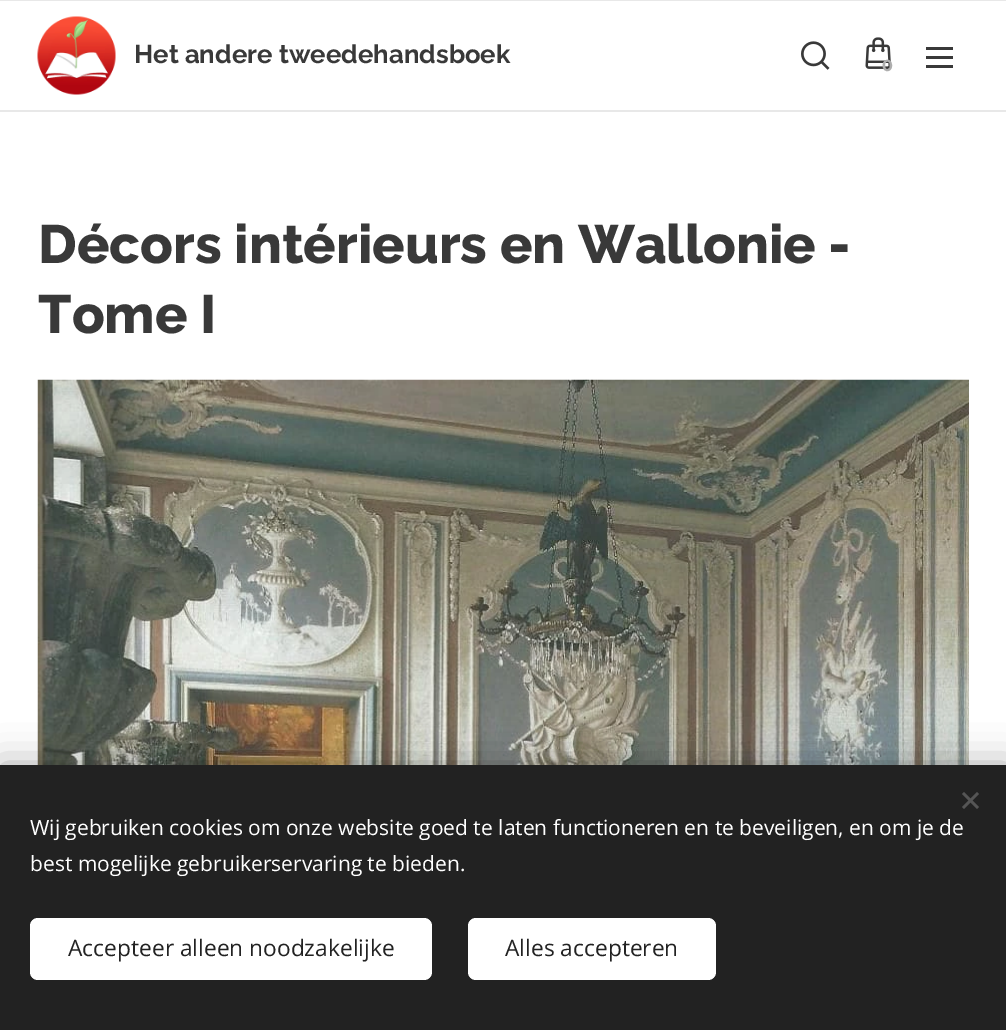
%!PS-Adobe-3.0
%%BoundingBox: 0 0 1006 1030
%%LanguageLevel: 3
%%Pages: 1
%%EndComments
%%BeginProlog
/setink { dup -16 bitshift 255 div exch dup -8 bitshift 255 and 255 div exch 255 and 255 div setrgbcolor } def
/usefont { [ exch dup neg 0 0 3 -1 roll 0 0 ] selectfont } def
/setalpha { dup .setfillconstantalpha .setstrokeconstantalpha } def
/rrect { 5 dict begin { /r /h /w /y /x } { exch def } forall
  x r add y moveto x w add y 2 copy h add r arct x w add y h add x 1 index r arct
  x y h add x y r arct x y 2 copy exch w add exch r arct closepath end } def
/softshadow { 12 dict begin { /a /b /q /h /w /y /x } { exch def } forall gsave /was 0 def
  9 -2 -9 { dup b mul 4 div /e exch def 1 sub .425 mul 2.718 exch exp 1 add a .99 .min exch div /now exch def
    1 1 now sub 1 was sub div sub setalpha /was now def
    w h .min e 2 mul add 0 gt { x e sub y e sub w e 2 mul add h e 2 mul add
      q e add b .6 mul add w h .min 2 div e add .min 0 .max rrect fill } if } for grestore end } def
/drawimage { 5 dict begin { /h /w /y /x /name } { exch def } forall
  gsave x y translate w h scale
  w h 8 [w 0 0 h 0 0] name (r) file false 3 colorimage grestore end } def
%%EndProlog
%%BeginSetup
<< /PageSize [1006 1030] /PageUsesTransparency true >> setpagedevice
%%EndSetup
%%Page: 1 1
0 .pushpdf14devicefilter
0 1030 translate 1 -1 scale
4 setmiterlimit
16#FFFFFF setink
0 0 1006 1030 rectfill
(img1.raw) 37 16 79 79 drawimage
/Raleway-Bold 25.75 usefont
16#393939 setink
134 63 moveto (Het andere) show
279 63 moveto (tweedehandsboek) show
16#E8E8E8 setink
0 0 1006 1 rectfill
(img2.raw) 801 41 29 29 drawimage
(img3.raw) 865 37 26 32 drawimage
/Montserrat-Bold 16 usefont
16#AEAEAE setink
882 71 moveto (0) show
[
    [926 56 27 3 16#393939]
    [926 47 27 3 16#393939]
    [926 65 27 3 16#393939]
    [0 110 1006 2 16#E8E8E8]
] { aload pop setink rectfill } forall
/Raleway-ExtraBold 54 usefont
16#393939 setink
38 263 moveto (Décors intérieurs en Wallonie -) show
38 333 moveto (Tome I) show
(img4.raw) 37 379 932 386 drawimage
16#000000 setink
0 765 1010 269 0 19 0.33 softshadow
16#222222 setink
0 765 1006 265 rectfill
16#555555 setink
962 807 moveto 977 792 lineto 979 794 lineto 964 809 lineto closepath fill
964 792 moveto 979 807 lineto 977 809 lineto 962 794 lineto closepath fill
/OpenSans-Regular 21 usefont
16#FFFFFF setink
30 835 moveto (Wij gebruiken cookies om onze website goed te laten functioneren en te beveiligen, en om je de) show
30 871 moveto (best mogelijke gebruikerservaring te bieden.) show
30 918 402 62 8 rrect fill
/OpenSans-Regular 22.75 usefont
16#222222 setink
68 956 moveto (Accepteer alleen noodzakelijke) show
16#FFFFFF setink
468 918 248 62 8 rrect fill
16#222222 setink
505 956 moveto (Alles accepteren) show
.poppdf14devicefilter showpage
%%EOF
